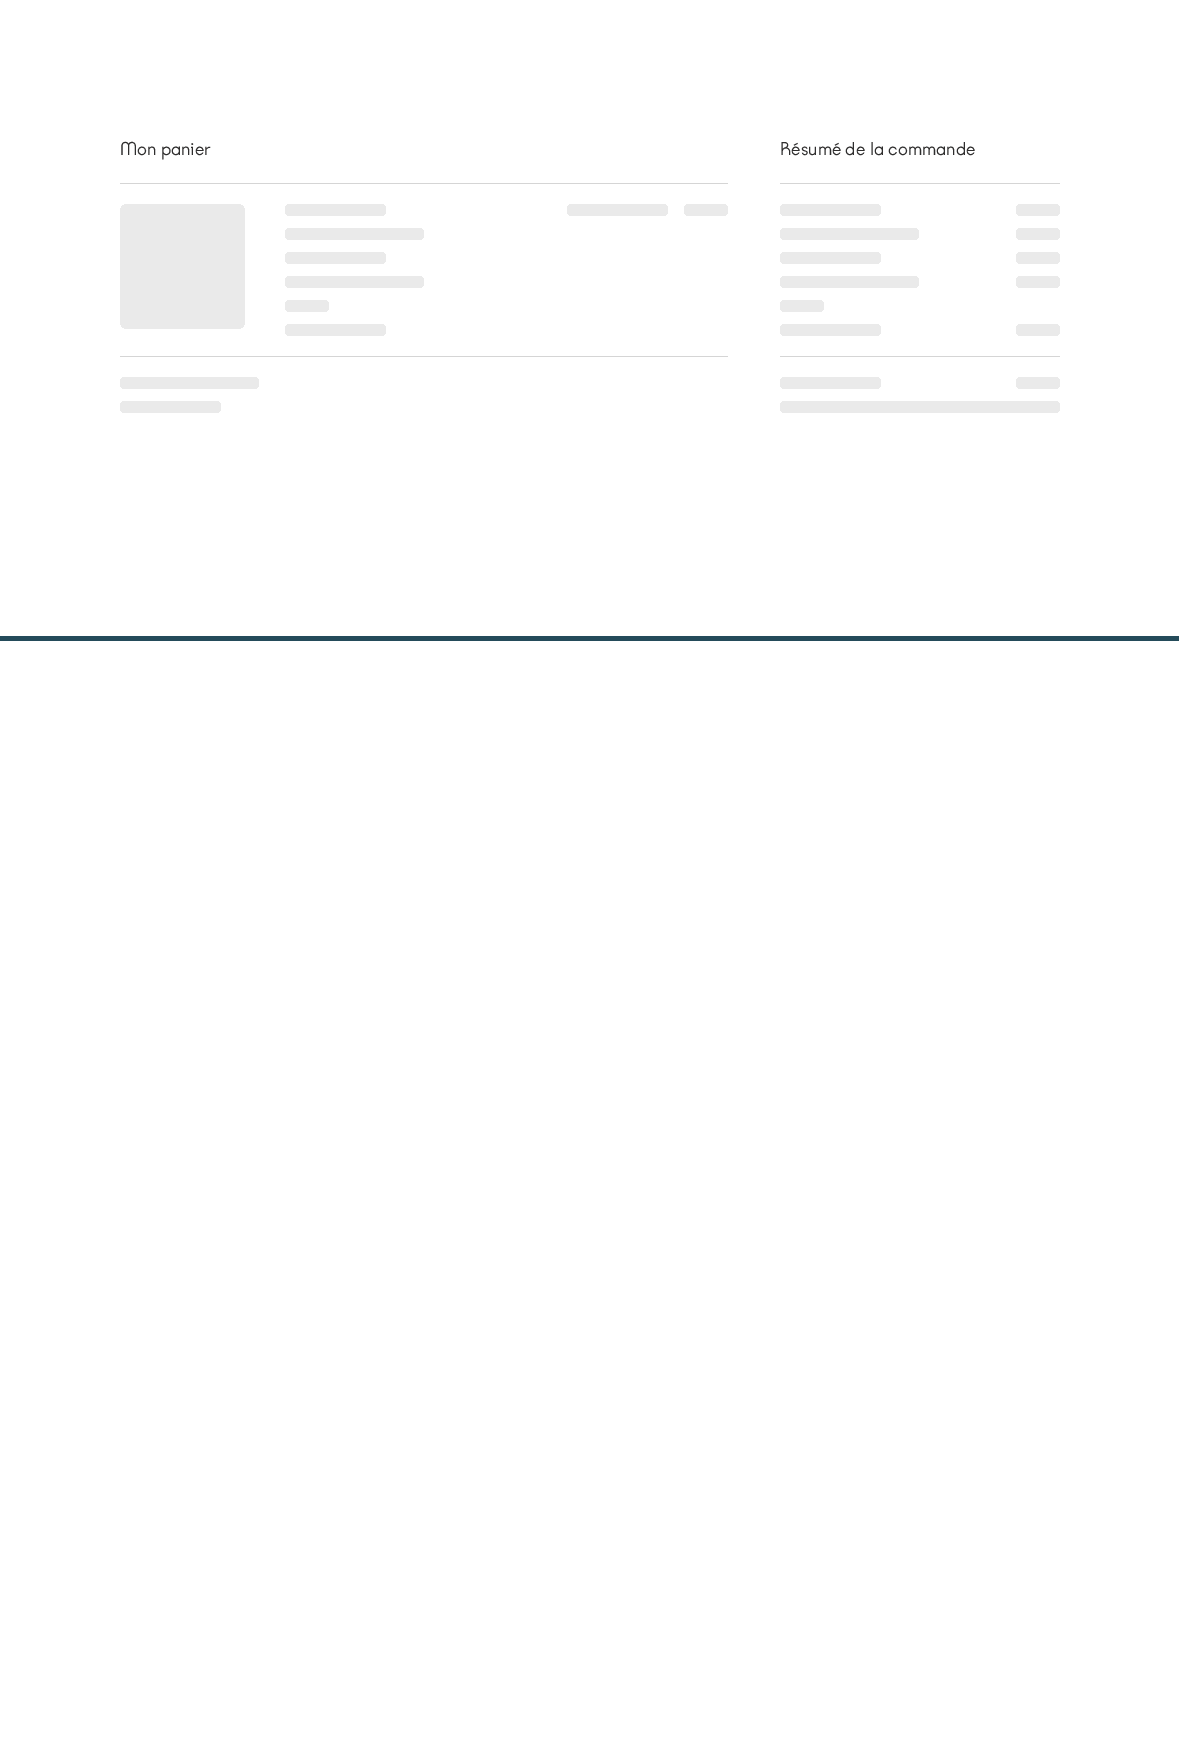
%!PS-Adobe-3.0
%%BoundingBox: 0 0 1179 1760
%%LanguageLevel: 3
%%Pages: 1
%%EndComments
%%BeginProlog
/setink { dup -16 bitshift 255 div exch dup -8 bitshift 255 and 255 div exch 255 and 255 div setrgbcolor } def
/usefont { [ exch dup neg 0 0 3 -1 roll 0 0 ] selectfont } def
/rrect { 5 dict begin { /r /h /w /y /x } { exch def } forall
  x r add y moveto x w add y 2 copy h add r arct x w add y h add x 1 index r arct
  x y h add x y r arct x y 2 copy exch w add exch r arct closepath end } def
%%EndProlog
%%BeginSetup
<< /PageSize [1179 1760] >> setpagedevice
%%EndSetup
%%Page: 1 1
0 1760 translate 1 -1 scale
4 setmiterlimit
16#FFFFFF setink
0 0 1179 1760 rectfill
16#D5D5D5 setink
120 183 608 1 rectfill
/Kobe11-Regular 20 usefont
16#2F2E2E setink
120 155 moveto (Mon panier) show
gsave 120 204 125 125 8 rrect clip newpath
<< /ShadingType 2 /ColorSpace /DeviceRGB /Coords [120 267 620 267] /Extend [true true] /Function << /FunctionType 3 /Domain [0 1] /Functions [<< /FunctionType 2 /Domain [0 1] /C0 [0.918 0.918 0.918] /C1 [0.918 0.918 0.918] /N 1 >> << /FunctionType 2 /Domain [0 1] /C0 [0.918 0.918 0.918] /C1 [0.835 0.835 0.835] /N 1 >> << /FunctionType 2 /Domain [0 1] /C0 [0.835 0.835 0.835] /C1 [0.918 0.918 0.918] /N 1 >> << /FunctionType 2 /Domain [0 1] /C0 [0.918 0.918 0.918] /C1 [0.918 0.918 0.918] /N 1 >>] /Bounds [0.25 0.37 0.63] /Encode [0 1 0 1 0 1 0 1] >> >> shfill grestore
gsave 285 204 101 12 6 rrect clip newpath
<< /ShadingType 2 /ColorSpace /DeviceRGB /Coords [285 210 689 210] /Extend [true true] /Function << /FunctionType 3 /Domain [0 1] /Functions [<< /FunctionType 2 /Domain [0 1] /C0 [0.918 0.918 0.918] /C1 [0.918 0.918 0.918] /N 1 >> << /FunctionType 2 /Domain [0 1] /C0 [0.918 0.918 0.918] /C1 [0.835 0.835 0.835] /N 1 >> << /FunctionType 2 /Domain [0 1] /C0 [0.835 0.835 0.835] /C1 [0.918 0.918 0.918] /N 1 >> << /FunctionType 2 /Domain [0 1] /C0 [0.918 0.918 0.918] /C1 [0.918 0.918 0.918] /N 1 >>] /Bounds [0.25 0.37 0.63] /Encode [0 1 0 1 0 1 0 1] >> >> shfill grestore
gsave 285 228 139 12 6 rrect clip newpath
<< /ShadingType 2 /ColorSpace /DeviceRGB /Coords [285 234 841 234] /Extend [true true] /Function << /FunctionType 3 /Domain [0 1] /Functions [<< /FunctionType 2 /Domain [0 1] /C0 [0.918 0.918 0.918] /C1 [0.918 0.918 0.918] /N 1 >> << /FunctionType 2 /Domain [0 1] /C0 [0.918 0.918 0.918] /C1 [0.835 0.835 0.835] /N 1 >> << /FunctionType 2 /Domain [0 1] /C0 [0.835 0.835 0.835] /C1 [0.918 0.918 0.918] /N 1 >> << /FunctionType 2 /Domain [0 1] /C0 [0.918 0.918 0.918] /C1 [0.918 0.918 0.918] /N 1 >>] /Bounds [0.25 0.37 0.63] /Encode [0 1 0 1 0 1 0 1] >> >> shfill grestore
gsave 285 252 101 12 6 rrect clip newpath
<< /ShadingType 2 /ColorSpace /DeviceRGB /Coords [285 258 689 258] /Extend [true true] /Function << /FunctionType 3 /Domain [0 1] /Functions [<< /FunctionType 2 /Domain [0 1] /C0 [0.918 0.918 0.918] /C1 [0.918 0.918 0.918] /N 1 >> << /FunctionType 2 /Domain [0 1] /C0 [0.918 0.918 0.918] /C1 [0.835 0.835 0.835] /N 1 >> << /FunctionType 2 /Domain [0 1] /C0 [0.835 0.835 0.835] /C1 [0.918 0.918 0.918] /N 1 >> << /FunctionType 2 /Domain [0 1] /C0 [0.918 0.918 0.918] /C1 [0.918 0.918 0.918] /N 1 >>] /Bounds [0.25 0.37 0.63] /Encode [0 1 0 1 0 1 0 1] >> >> shfill grestore
gsave 285 276 139 12 6 rrect clip newpath
<< /ShadingType 2 /ColorSpace /DeviceRGB /Coords [285 282 841 282] /Extend [true true] /Function << /FunctionType 3 /Domain [0 1] /Functions [<< /FunctionType 2 /Domain [0 1] /C0 [0.918 0.918 0.918] /C1 [0.918 0.918 0.918] /N 1 >> << /FunctionType 2 /Domain [0 1] /C0 [0.918 0.918 0.918] /C1 [0.835 0.835 0.835] /N 1 >> << /FunctionType 2 /Domain [0 1] /C0 [0.835 0.835 0.835] /C1 [0.918 0.918 0.918] /N 1 >> << /FunctionType 2 /Domain [0 1] /C0 [0.918 0.918 0.918] /C1 [0.918 0.918 0.918] /N 1 >>] /Bounds [0.25 0.37 0.63] /Encode [0 1 0 1 0 1 0 1] >> >> shfill grestore
gsave 285 300 44 12 6 rrect clip newpath
<< /ShadingType 2 /ColorSpace /DeviceRGB /Coords [285 306 461 306] /Extend [true true] /Function << /FunctionType 3 /Domain [0 1] /Functions [<< /FunctionType 2 /Domain [0 1] /C0 [0.918 0.918 0.918] /C1 [0.918 0.918 0.918] /N 1 >> << /FunctionType 2 /Domain [0 1] /C0 [0.918 0.918 0.918] /C1 [0.835 0.835 0.835] /N 1 >> << /FunctionType 2 /Domain [0 1] /C0 [0.835 0.835 0.835] /C1 [0.918 0.918 0.918] /N 1 >> << /FunctionType 2 /Domain [0 1] /C0 [0.918 0.918 0.918] /C1 [0.918 0.918 0.918] /N 1 >>] /Bounds [0.25 0.37 0.63] /Encode [0 1 0 1 0 1 0 1] >> >> shfill grestore
gsave 285 324 101 12 6 rrect clip newpath
<< /ShadingType 2 /ColorSpace /DeviceRGB /Coords [285 330 689 330] /Extend [true true] /Function << /FunctionType 3 /Domain [0 1] /Functions [<< /FunctionType 2 /Domain [0 1] /C0 [0.918 0.918 0.918] /C1 [0.918 0.918 0.918] /N 1 >> << /FunctionType 2 /Domain [0 1] /C0 [0.918 0.918 0.918] /C1 [0.835 0.835 0.835] /N 1 >> << /FunctionType 2 /Domain [0 1] /C0 [0.835 0.835 0.835] /C1 [0.918 0.918 0.918] /N 1 >> << /FunctionType 2 /Domain [0 1] /C0 [0.918 0.918 0.918] /C1 [0.918 0.918 0.918] /N 1 >>] /Bounds [0.25 0.37 0.63] /Encode [0 1 0 1 0 1 0 1] >> >> shfill grestore
gsave 567 204 101 12 6 rrect clip newpath
<< /ShadingType 2 /ColorSpace /DeviceRGB /Coords [567 210 971 210] /Extend [true true] /Function << /FunctionType 3 /Domain [0 1] /Functions [<< /FunctionType 2 /Domain [0 1] /C0 [0.918 0.918 0.918] /C1 [0.918 0.918 0.918] /N 1 >> << /FunctionType 2 /Domain [0 1] /C0 [0.918 0.918 0.918] /C1 [0.835 0.835 0.835] /N 1 >> << /FunctionType 2 /Domain [0 1] /C0 [0.835 0.835 0.835] /C1 [0.918 0.918 0.918] /N 1 >> << /FunctionType 2 /Domain [0 1] /C0 [0.918 0.918 0.918] /C1 [0.918 0.918 0.918] /N 1 >>] /Bounds [0.25 0.37 0.63] /Encode [0 1 0 1 0 1 0 1] >> >> shfill grestore
gsave 684 204 44 12 6 rrect clip newpath
<< /ShadingType 2 /ColorSpace /DeviceRGB /Coords [684 210 860 210] /Extend [true true] /Function << /FunctionType 3 /Domain [0 1] /Functions [<< /FunctionType 2 /Domain [0 1] /C0 [0.918 0.918 0.918] /C1 [0.918 0.918 0.918] /N 1 >> << /FunctionType 2 /Domain [0 1] /C0 [0.918 0.918 0.918] /C1 [0.835 0.835 0.835] /N 1 >> << /FunctionType 2 /Domain [0 1] /C0 [0.835 0.835 0.835] /C1 [0.918 0.918 0.918] /N 1 >> << /FunctionType 2 /Domain [0 1] /C0 [0.918 0.918 0.918] /C1 [0.918 0.918 0.918] /N 1 >>] /Bounds [0.25 0.37 0.63] /Encode [0 1 0 1 0 1 0 1] >> >> shfill grestore
16#D5D5D5 setink
120 356 608 1 rectfill
gsave 120 377 139 12 6 rrect clip newpath
<< /ShadingType 2 /ColorSpace /DeviceRGB /Coords [120 383 676 383] /Extend [true true] /Function << /FunctionType 3 /Domain [0 1] /Functions [<< /FunctionType 2 /Domain [0 1] /C0 [0.918 0.918 0.918] /C1 [0.918 0.918 0.918] /N 1 >> << /FunctionType 2 /Domain [0 1] /C0 [0.918 0.918 0.918] /C1 [0.835 0.835 0.835] /N 1 >> << /FunctionType 2 /Domain [0 1] /C0 [0.835 0.835 0.835] /C1 [0.918 0.918 0.918] /N 1 >> << /FunctionType 2 /Domain [0 1] /C0 [0.918 0.918 0.918] /C1 [0.918 0.918 0.918] /N 1 >>] /Bounds [0.25 0.37 0.63] /Encode [0 1 0 1 0 1 0 1] >> >> shfill grestore
gsave 120 401 101 12 6 rrect clip newpath
<< /ShadingType 2 /ColorSpace /DeviceRGB /Coords [120 407 524 407] /Extend [true true] /Function << /FunctionType 3 /Domain [0 1] /Functions [<< /FunctionType 2 /Domain [0 1] /C0 [0.918 0.918 0.918] /C1 [0.918 0.918 0.918] /N 1 >> << /FunctionType 2 /Domain [0 1] /C0 [0.918 0.918 0.918] /C1 [0.835 0.835 0.835] /N 1 >> << /FunctionType 2 /Domain [0 1] /C0 [0.835 0.835 0.835] /C1 [0.918 0.918 0.918] /N 1 >> << /FunctionType 2 /Domain [0 1] /C0 [0.918 0.918 0.918] /C1 [0.918 0.918 0.918] /N 1 >>] /Bounds [0.25 0.37 0.63] /Encode [0 1 0 1 0 1 0 1] >> >> shfill grestore
780 183 280 1 rectfill
16#2F2E2E setink
780 155 moveto (Résumé de la commande) show
gsave 780 204 101 12 6 rrect clip newpath
<< /ShadingType 2 /ColorSpace /DeviceRGB /Coords [780 210 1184 210] /Extend [true true] /Function << /FunctionType 3 /Domain [0 1] /Functions [<< /FunctionType 2 /Domain [0 1] /C0 [0.918 0.918 0.918] /C1 [0.918 0.918 0.918] /N 1 >> << /FunctionType 2 /Domain [0 1] /C0 [0.918 0.918 0.918] /C1 [0.835 0.835 0.835] /N 1 >> << /FunctionType 2 /Domain [0 1] /C0 [0.835 0.835 0.835] /C1 [0.918 0.918 0.918] /N 1 >> << /FunctionType 2 /Domain [0 1] /C0 [0.918 0.918 0.918] /C1 [0.918 0.918 0.918] /N 1 >>] /Bounds [0.25 0.37 0.63] /Encode [0 1 0 1 0 1 0 1] >> >> shfill grestore
gsave 1016 204 44 12 6 rrect clip newpath
<< /ShadingType 2 /ColorSpace /DeviceRGB /Coords [1016 210 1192 210] /Extend [true true] /Function << /FunctionType 3 /Domain [0 1] /Functions [<< /FunctionType 2 /Domain [0 1] /C0 [0.918 0.918 0.918] /C1 [0.918 0.918 0.918] /N 1 >> << /FunctionType 2 /Domain [0 1] /C0 [0.918 0.918 0.918] /C1 [0.835 0.835 0.835] /N 1 >> << /FunctionType 2 /Domain [0 1] /C0 [0.835 0.835 0.835] /C1 [0.918 0.918 0.918] /N 1 >> << /FunctionType 2 /Domain [0 1] /C0 [0.918 0.918 0.918] /C1 [0.918 0.918 0.918] /N 1 >>] /Bounds [0.25 0.37 0.63] /Encode [0 1 0 1 0 1 0 1] >> >> shfill grestore
gsave 780 228 139 12 6 rrect clip newpath
<< /ShadingType 2 /ColorSpace /DeviceRGB /Coords [780 234 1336 234] /Extend [true true] /Function << /FunctionType 3 /Domain [0 1] /Functions [<< /FunctionType 2 /Domain [0 1] /C0 [0.918 0.918 0.918] /C1 [0.918 0.918 0.918] /N 1 >> << /FunctionType 2 /Domain [0 1] /C0 [0.918 0.918 0.918] /C1 [0.835 0.835 0.835] /N 1 >> << /FunctionType 2 /Domain [0 1] /C0 [0.835 0.835 0.835] /C1 [0.918 0.918 0.918] /N 1 >> << /FunctionType 2 /Domain [0 1] /C0 [0.918 0.918 0.918] /C1 [0.918 0.918 0.918] /N 1 >>] /Bounds [0.25 0.37 0.63] /Encode [0 1 0 1 0 1 0 1] >> >> shfill grestore
gsave 1016 228 44 12 6 rrect clip newpath
<< /ShadingType 2 /ColorSpace /DeviceRGB /Coords [1016 234 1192 234] /Extend [true true] /Function << /FunctionType 3 /Domain [0 1] /Functions [<< /FunctionType 2 /Domain [0 1] /C0 [0.918 0.918 0.918] /C1 [0.918 0.918 0.918] /N 1 >> << /FunctionType 2 /Domain [0 1] /C0 [0.918 0.918 0.918] /C1 [0.835 0.835 0.835] /N 1 >> << /FunctionType 2 /Domain [0 1] /C0 [0.835 0.835 0.835] /C1 [0.918 0.918 0.918] /N 1 >> << /FunctionType 2 /Domain [0 1] /C0 [0.918 0.918 0.918] /C1 [0.918 0.918 0.918] /N 1 >>] /Bounds [0.25 0.37 0.63] /Encode [0 1 0 1 0 1 0 1] >> >> shfill grestore
gsave 780 252 101 12 6 rrect clip newpath
<< /ShadingType 2 /ColorSpace /DeviceRGB /Coords [780 258 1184 258] /Extend [true true] /Function << /FunctionType 3 /Domain [0 1] /Functions [<< /FunctionType 2 /Domain [0 1] /C0 [0.918 0.918 0.918] /C1 [0.918 0.918 0.918] /N 1 >> << /FunctionType 2 /Domain [0 1] /C0 [0.918 0.918 0.918] /C1 [0.835 0.835 0.835] /N 1 >> << /FunctionType 2 /Domain [0 1] /C0 [0.835 0.835 0.835] /C1 [0.918 0.918 0.918] /N 1 >> << /FunctionType 2 /Domain [0 1] /C0 [0.918 0.918 0.918] /C1 [0.918 0.918 0.918] /N 1 >>] /Bounds [0.25 0.37 0.63] /Encode [0 1 0 1 0 1 0 1] >> >> shfill grestore
gsave 1016 252 44 12 6 rrect clip newpath
<< /ShadingType 2 /ColorSpace /DeviceRGB /Coords [1016 258 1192 258] /Extend [true true] /Function << /FunctionType 3 /Domain [0 1] /Functions [<< /FunctionType 2 /Domain [0 1] /C0 [0.918 0.918 0.918] /C1 [0.918 0.918 0.918] /N 1 >> << /FunctionType 2 /Domain [0 1] /C0 [0.918 0.918 0.918] /C1 [0.835 0.835 0.835] /N 1 >> << /FunctionType 2 /Domain [0 1] /C0 [0.835 0.835 0.835] /C1 [0.918 0.918 0.918] /N 1 >> << /FunctionType 2 /Domain [0 1] /C0 [0.918 0.918 0.918] /C1 [0.918 0.918 0.918] /N 1 >>] /Bounds [0.25 0.37 0.63] /Encode [0 1 0 1 0 1 0 1] >> >> shfill grestore
gsave 780 276 139 12 6 rrect clip newpath
<< /ShadingType 2 /ColorSpace /DeviceRGB /Coords [780 282 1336 282] /Extend [true true] /Function << /FunctionType 3 /Domain [0 1] /Functions [<< /FunctionType 2 /Domain [0 1] /C0 [0.918 0.918 0.918] /C1 [0.918 0.918 0.918] /N 1 >> << /FunctionType 2 /Domain [0 1] /C0 [0.918 0.918 0.918] /C1 [0.835 0.835 0.835] /N 1 >> << /FunctionType 2 /Domain [0 1] /C0 [0.835 0.835 0.835] /C1 [0.918 0.918 0.918] /N 1 >> << /FunctionType 2 /Domain [0 1] /C0 [0.918 0.918 0.918] /C1 [0.918 0.918 0.918] /N 1 >>] /Bounds [0.25 0.37 0.63] /Encode [0 1 0 1 0 1 0 1] >> >> shfill grestore
gsave 1016 276 44 12 6 rrect clip newpath
<< /ShadingType 2 /ColorSpace /DeviceRGB /Coords [1016 282 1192 282] /Extend [true true] /Function << /FunctionType 3 /Domain [0 1] /Functions [<< /FunctionType 2 /Domain [0 1] /C0 [0.918 0.918 0.918] /C1 [0.918 0.918 0.918] /N 1 >> << /FunctionType 2 /Domain [0 1] /C0 [0.918 0.918 0.918] /C1 [0.835 0.835 0.835] /N 1 >> << /FunctionType 2 /Domain [0 1] /C0 [0.835 0.835 0.835] /C1 [0.918 0.918 0.918] /N 1 >> << /FunctionType 2 /Domain [0 1] /C0 [0.918 0.918 0.918] /C1 [0.918 0.918 0.918] /N 1 >>] /Bounds [0.25 0.37 0.63] /Encode [0 1 0 1 0 1 0 1] >> >> shfill grestore
gsave 780 300 44 12 6 rrect clip newpath
<< /ShadingType 2 /ColorSpace /DeviceRGB /Coords [780 306 956 306] /Extend [true true] /Function << /FunctionType 3 /Domain [0 1] /Functions [<< /FunctionType 2 /Domain [0 1] /C0 [0.918 0.918 0.918] /C1 [0.918 0.918 0.918] /N 1 >> << /FunctionType 2 /Domain [0 1] /C0 [0.918 0.918 0.918] /C1 [0.835 0.835 0.835] /N 1 >> << /FunctionType 2 /Domain [0 1] /C0 [0.835 0.835 0.835] /C1 [0.918 0.918 0.918] /N 1 >> << /FunctionType 2 /Domain [0 1] /C0 [0.918 0.918 0.918] /C1 [0.918 0.918 0.918] /N 1 >>] /Bounds [0.25 0.37 0.63] /Encode [0 1 0 1 0 1 0 1] >> >> shfill grestore
gsave 780 324 101 12 6 rrect clip newpath
<< /ShadingType 2 /ColorSpace /DeviceRGB /Coords [780 330 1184 330] /Extend [true true] /Function << /FunctionType 3 /Domain [0 1] /Functions [<< /FunctionType 2 /Domain [0 1] /C0 [0.918 0.918 0.918] /C1 [0.918 0.918 0.918] /N 1 >> << /FunctionType 2 /Domain [0 1] /C0 [0.918 0.918 0.918] /C1 [0.835 0.835 0.835] /N 1 >> << /FunctionType 2 /Domain [0 1] /C0 [0.835 0.835 0.835] /C1 [0.918 0.918 0.918] /N 1 >> << /FunctionType 2 /Domain [0 1] /C0 [0.918 0.918 0.918] /C1 [0.918 0.918 0.918] /N 1 >>] /Bounds [0.25 0.37 0.63] /Encode [0 1 0 1 0 1 0 1] >> >> shfill grestore
gsave 1016 324 44 12 6 rrect clip newpath
<< /ShadingType 2 /ColorSpace /DeviceRGB /Coords [1016 330 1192 330] /Extend [true true] /Function << /FunctionType 3 /Domain [0 1] /Functions [<< /FunctionType 2 /Domain [0 1] /C0 [0.918 0.918 0.918] /C1 [0.918 0.918 0.918] /N 1 >> << /FunctionType 2 /Domain [0 1] /C0 [0.918 0.918 0.918] /C1 [0.835 0.835 0.835] /N 1 >> << /FunctionType 2 /Domain [0 1] /C0 [0.835 0.835 0.835] /C1 [0.918 0.918 0.918] /N 1 >> << /FunctionType 2 /Domain [0 1] /C0 [0.918 0.918 0.918] /C1 [0.918 0.918 0.918] /N 1 >>] /Bounds [0.25 0.37 0.63] /Encode [0 1 0 1 0 1 0 1] >> >> shfill grestore
16#D5D5D5 setink
780 356 280 1 rectfill
gsave 780 377 101 12 6 rrect clip newpath
<< /ShadingType 2 /ColorSpace /DeviceRGB /Coords [780 383 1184 383] /Extend [true true] /Function << /FunctionType 3 /Domain [0 1] /Functions [<< /FunctionType 2 /Domain [0 1] /C0 [0.918 0.918 0.918] /C1 [0.918 0.918 0.918] /N 1 >> << /FunctionType 2 /Domain [0 1] /C0 [0.918 0.918 0.918] /C1 [0.835 0.835 0.835] /N 1 >> << /FunctionType 2 /Domain [0 1] /C0 [0.835 0.835 0.835] /C1 [0.918 0.918 0.918] /N 1 >> << /FunctionType 2 /Domain [0 1] /C0 [0.918 0.918 0.918] /C1 [0.918 0.918 0.918] /N 1 >>] /Bounds [0.25 0.37 0.63] /Encode [0 1 0 1 0 1 0 1] >> >> shfill grestore
gsave 1016 377 44 12 6 rrect clip newpath
<< /ShadingType 2 /ColorSpace /DeviceRGB /Coords [1016 383 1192 383] /Extend [true true] /Function << /FunctionType 3 /Domain [0 1] /Functions [<< /FunctionType 2 /Domain [0 1] /C0 [0.918 0.918 0.918] /C1 [0.918 0.918 0.918] /N 1 >> << /FunctionType 2 /Domain [0 1] /C0 [0.918 0.918 0.918] /C1 [0.835 0.835 0.835] /N 1 >> << /FunctionType 2 /Domain [0 1] /C0 [0.835 0.835 0.835] /C1 [0.918 0.918 0.918] /N 1 >> << /FunctionType 2 /Domain [0 1] /C0 [0.918 0.918 0.918] /C1 [0.918 0.918 0.918] /N 1 >>] /Bounds [0.25 0.37 0.63] /Encode [0 1 0 1 0 1 0 1] >> >> shfill grestore
gsave 780 401 280 12 6 rrect clip newpath
<< /ShadingType 2 /ColorSpace /DeviceRGB /Coords [780 407 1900 407] /Extend [true true] /Function << /FunctionType 3 /Domain [0 1] /Functions [<< /FunctionType 2 /Domain [0 1] /C0 [0.918 0.918 0.918] /C1 [0.918 0.918 0.918] /N 1 >> << /FunctionType 2 /Domain [0 1] /C0 [0.918 0.918 0.918] /C1 [0.835 0.835 0.835] /N 1 >> << /FunctionType 2 /Domain [0 1] /C0 [0.835 0.835 0.835] /C1 [0.918 0.918 0.918] /N 1 >> << /FunctionType 2 /Domain [0 1] /C0 [0.918 0.918 0.918] /C1 [0.918 0.918 0.918] /N 1 >>] /Bounds [0.25 0.37 0.63] /Encode [0 1 0 1 0 1 0 1] >> >> shfill grestore
16#244B5A setink
0 636 1179 5 rectfill
showpage
%%EOF
